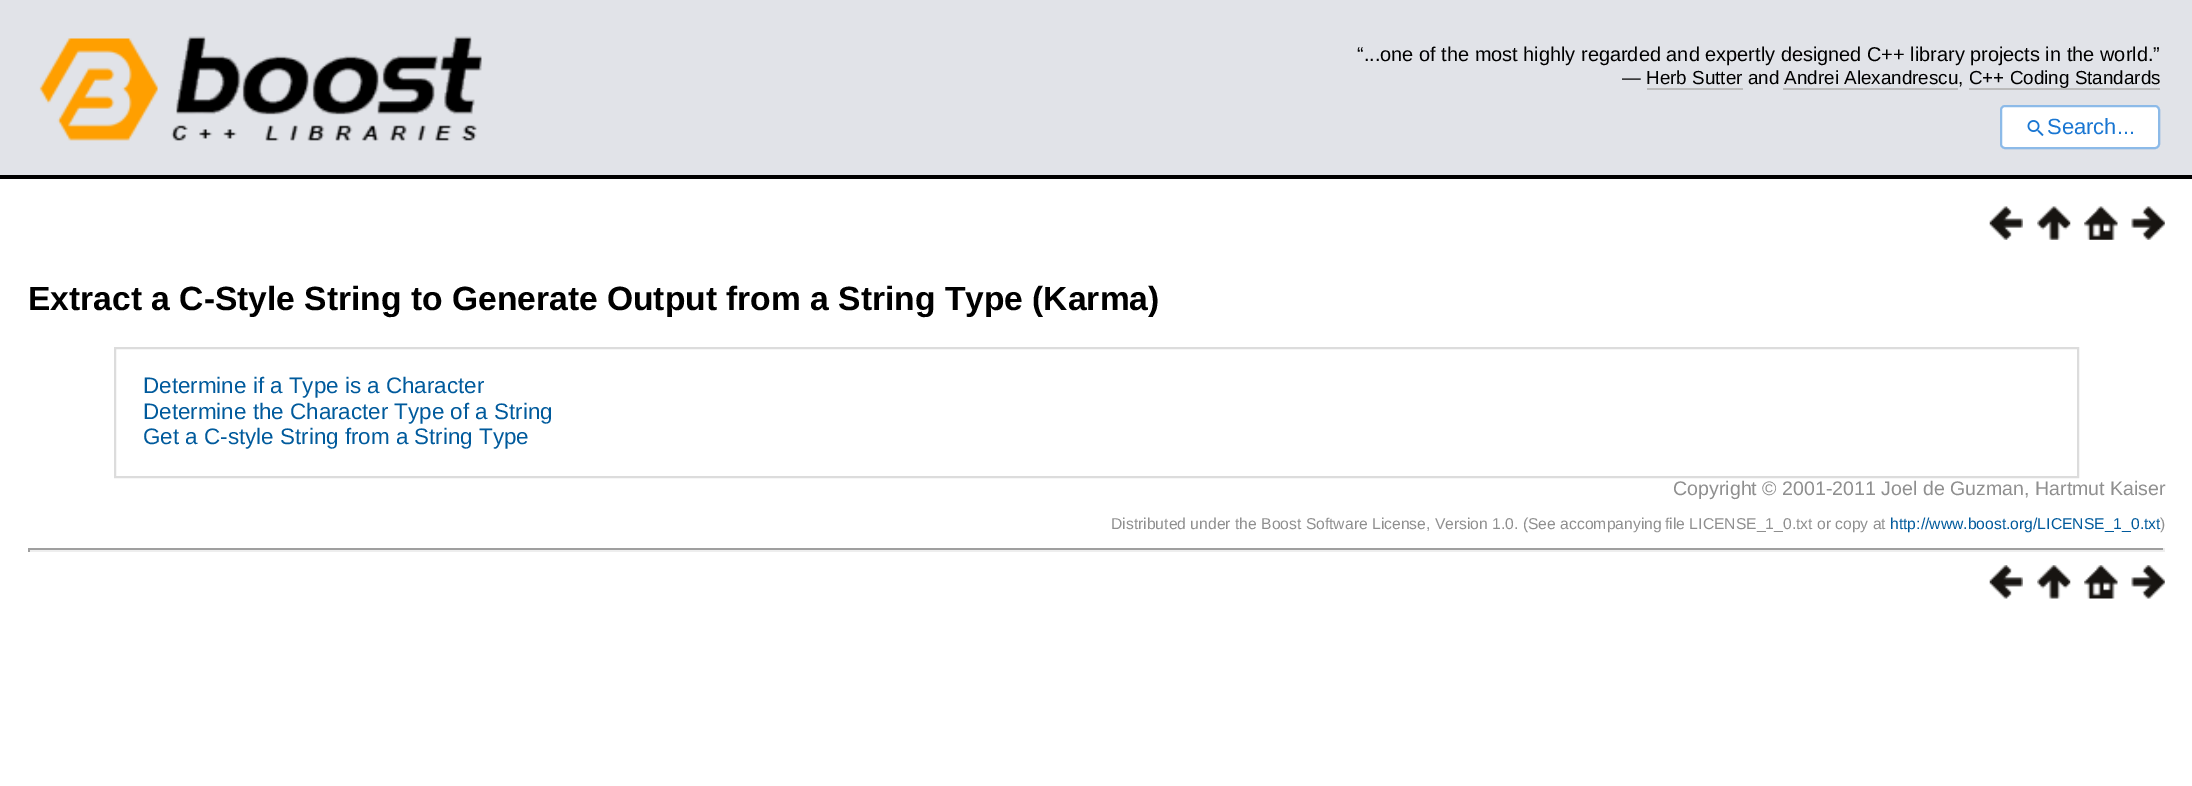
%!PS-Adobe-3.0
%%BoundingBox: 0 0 2192 786
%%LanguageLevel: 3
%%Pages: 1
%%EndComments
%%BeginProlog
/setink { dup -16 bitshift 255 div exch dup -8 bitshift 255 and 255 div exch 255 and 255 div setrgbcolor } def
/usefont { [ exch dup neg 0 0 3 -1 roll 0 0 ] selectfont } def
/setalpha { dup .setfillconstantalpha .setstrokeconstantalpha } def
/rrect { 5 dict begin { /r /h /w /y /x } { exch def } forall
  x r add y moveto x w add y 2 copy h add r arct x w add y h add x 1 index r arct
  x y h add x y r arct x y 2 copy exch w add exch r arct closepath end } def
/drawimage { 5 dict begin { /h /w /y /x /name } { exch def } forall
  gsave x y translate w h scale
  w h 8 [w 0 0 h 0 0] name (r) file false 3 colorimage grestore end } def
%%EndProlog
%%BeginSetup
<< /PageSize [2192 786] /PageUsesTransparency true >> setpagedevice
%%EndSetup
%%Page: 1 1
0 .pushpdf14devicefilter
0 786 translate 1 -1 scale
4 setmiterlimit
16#FFFFFF setink
0 0 2192 786 rectfill
16#E1E3E8 setink
0 0 2192 175 rectfill
16#000000 setink
0 175 2192 4 rectfill
(img1.raw) 39 36 443 105 drawimage
/LiberationSans-Regular 19.95 usefont
1357 61 moveto (“...one of the most highly regarded and expertly designed C++ library projects in the) show
2100 61 moveto (world.”) show
/LiberationSans-Regular 18.85 usefont
1622 84 moveto (— Herb Sutter and Andrei Alexandrescu, C++ Coding Standards) show
[
    [1647 88 96 2 16#BBBBBB]
    [1783 88 175 2 16#BBBBBB]
    [1969 88 191 2 16#BBBBBB]
] { aload pop setink rectfill } forall
16#FFFFFF setink
2000 105 160 44 5 rrect fill
0.5 setalpha
16#1976D2 setink
2 setlinewidth
2001 106 158 42 4 rrect stroke
1 setalpha
(img2.raw) 2027 120 17 17 drawimage
/LiberationSans-Regular 22 usefont
2047 134 moveto (Search...) show
(img3.raw) 1989 206 34 34 drawimage
(img4.raw) 2037 206 34 34 drawimage
(img5.raw) 2084 206 34 34 drawimage
(img6.raw) 2131 206 34 34 drawimage
/LiberationSans-Bold 33.6 usefont
16#000000 setink
28 310 moveto (Extract a C-Style String to Generate Output from a String Type \(Karma\)) show
16#DCDCDC setink
115 348 1963 129 rectstroke
/LiberationSans-Regular 22.4 usefont
16#005A9C setink
[
    [(Determine if a Type is a Character) 143 393]
    [(Determine the Character Type of a String) 143 419]
    [(Get a C-style String from a String Type) 143 444]
] { aload pop moveto show } forall
/LiberationSans-Regular 19.6 usefont
16#8F8F8F setink
1673 495 moveto (Copyright © 2001-2011 Joel de Guzman, Hartmut Kaiser) show
/LiberationSans-Regular 15.7 usefont
1111 529 moveto (Distributed under the Boost Software License, Version 1.0. \(See accompanying) show
1665 529 moveto (file LICENSE_1_0.txt or copy at) show
16#005A9C setink
1890 529 moveto (http://www.boost.org/LICENSE_1_0.txt) show
16#8F8F8F setink
2160 529 moveto (\)) show
[
    [28 548 2137 2 16#9F9F9F]
    [2163 548 2 4 16#EEEEEE]
    [28 550 2137 2 16#EEEEEE]
    [28 548 2 4 16#9F9F9F]
] { aload pop setink rectfill } forall
(img7.raw) 1989 565 34 34 drawimage
(img8.raw) 2037 565 34 34 drawimage
(img9.raw) 2084 565 34 34 drawimage
(img10.raw) 2131 565 34 34 drawimage
.poppdf14devicefilter showpage
%%EOF
